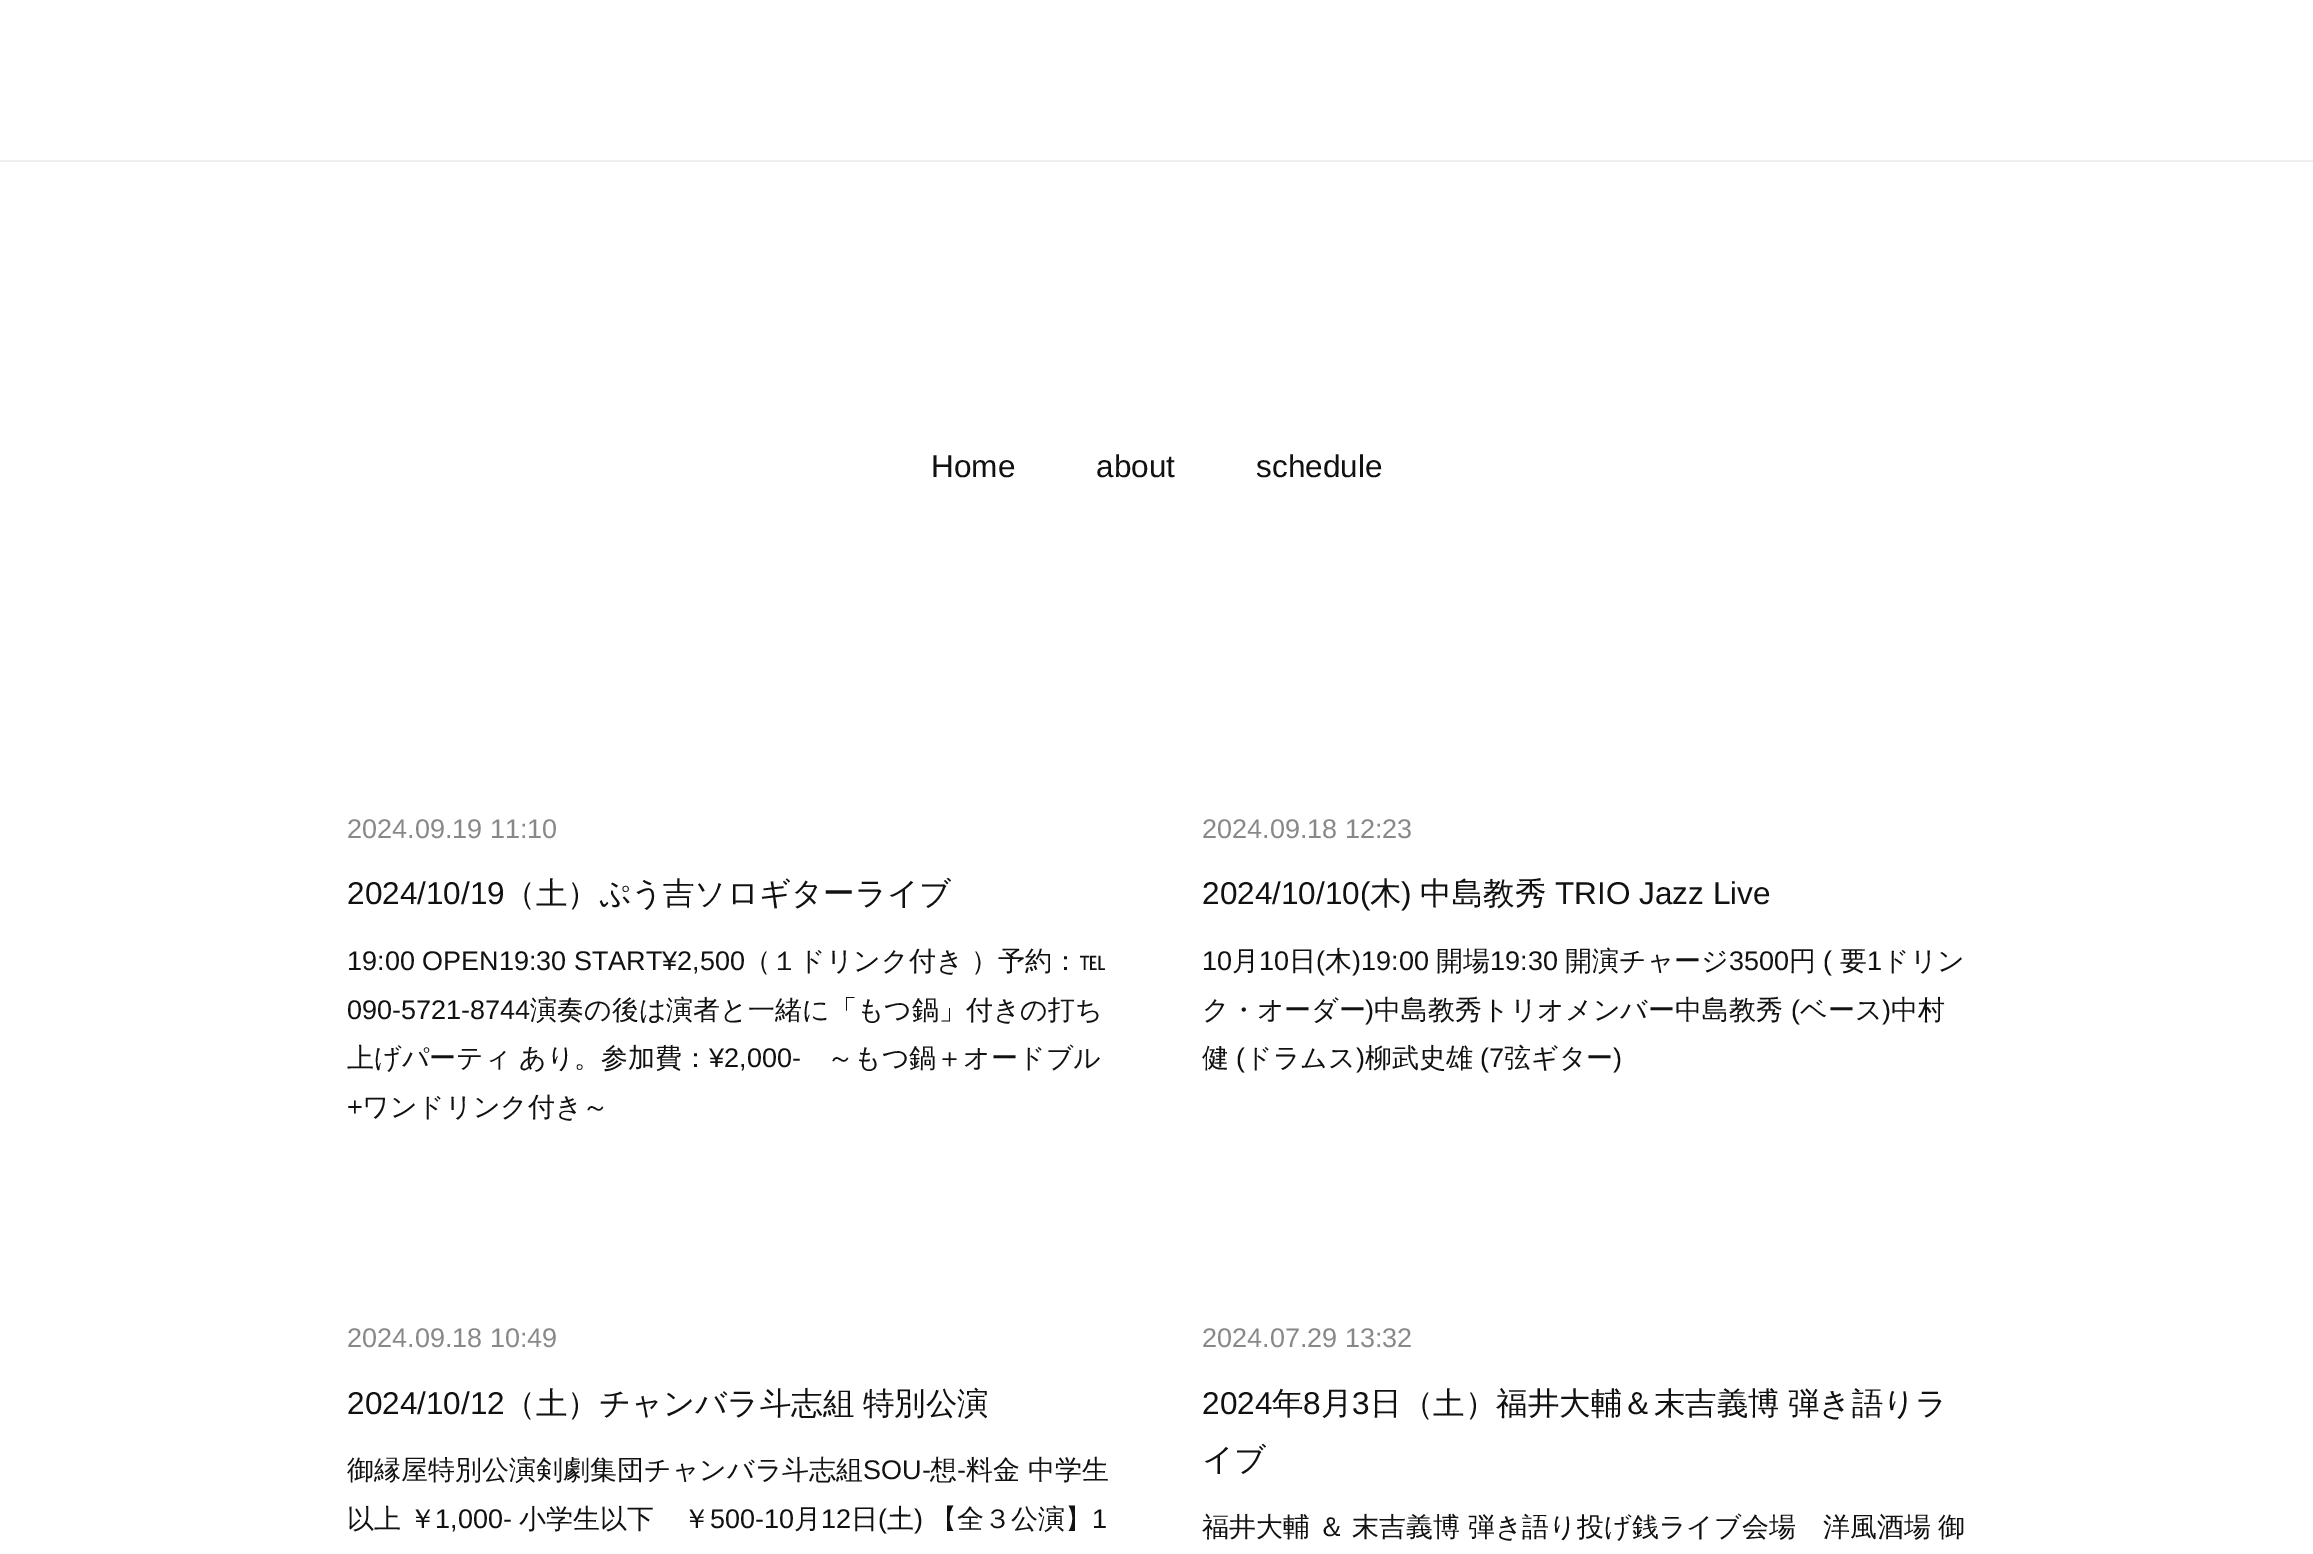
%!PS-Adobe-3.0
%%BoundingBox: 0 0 2313 1554
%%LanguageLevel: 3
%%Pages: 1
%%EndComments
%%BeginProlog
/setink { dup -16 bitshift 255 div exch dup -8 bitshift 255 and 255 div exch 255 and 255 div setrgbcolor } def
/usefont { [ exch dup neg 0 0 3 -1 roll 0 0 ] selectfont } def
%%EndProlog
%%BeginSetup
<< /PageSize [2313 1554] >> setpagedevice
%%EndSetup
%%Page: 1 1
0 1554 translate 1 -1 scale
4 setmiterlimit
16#FFFFFF setink
0 0 2313 1554 rectfill
16#EEEEEE setink
0 160 2313 2 rectfill
/LiberationSans-Regular 31.5 usefont
16#111111 setink
[
    [(Home) 931 477]
    [(about) 1096 477]
    [(schedule) 1256 477]
] { aload pop moveto show } forall
/LiberationSans-Regular 27 usefont
16#888888 setink
347 838 moveto (2024.09.19 11:10) show
/LiberationSans-Regular 31.5 usefont
16#111111 setink
347 904 moveto (2024/10/19) show
/WenQuanYiZenHei-Medium 31.5 usefont
504 904 moveto (（土）ぷう吉ソロギターライブ) show
/LiberationSans-Regular 27 usefont
347 970 moveto (19:00 OPEN19:30 START¥2,500) show
/WenQuanYiZenHei-Medium 27 usefont
744 970 moveto (（１ドリンク付き) show
971 970 moveto (）予約：℡) show
/LiberationSans-Regular 27 usefont
347 1019 moveto (090-5721-8744) show
/WenQuanYiZenHei-Medium 27 usefont
530 1019 moveto (演奏の後は演者と一緒に「もつ鍋」付きの打ち) show
347 1067 moveto -0.5 0 32 (上げパーティ あり。参加費：) widthshow
/LiberationSans-Regular 27 usefont
709 1067 moveto (¥2,000‐) show
/WenQuanYiZenHei-Medium 27 usefont
827 1067 moveto (～もつ鍋＋オードブル) show
/LiberationSans-Regular 27 usefont
347 1116 moveto (+) show
/WenQuanYiZenHei-Medium 27 usefont
362 1116 moveto (ワンドリンク付き～) show
/LiberationSans-Regular 27 usefont
16#888888 setink
1202 838 moveto (2024.09.18 12:23) show
/LiberationSans-Regular 31.5 usefont
16#111111 setink
1202 904 moveto (2024/10/10\() show
/WenQuanYiZenHei-Medium 31.5 usefont
1370 904 moveto (木) show
/LiberationSans-Regular 31.5 usefont
1401 904 moveto (\)) show
/WenQuanYiZenHei-Medium 31.5 usefont
1420 904 moveto (中島教秀) show
/LiberationSans-Regular 31.5 usefont
1555 904 moveto (TRIO Jazz Live) show
/LiberationSans-Regular 27 usefont
1202 970 moveto (10) show
/WenQuanYiZenHei-Medium 27 usefont
1232 970 moveto (月) show
/LiberationSans-Regular 27 usefont
1259 970 moveto (10) show
/WenQuanYiZenHei-Medium 27 usefont
1289 970 moveto (日) show
/LiberationSans-Regular 27 usefont
1316 970 moveto (\() show
/WenQuanYiZenHei-Medium 27 usefont
1325 970 moveto (木) show
/LiberationSans-Regular 27 usefont
1352 970 moveto (\)19:00) show
/WenQuanYiZenHei-Medium 27 usefont
1436 970 moveto (開場) show
/LiberationSans-Regular 27 usefont
1490 970 moveto (19:30) show
/WenQuanYiZenHei-Medium 27 usefont
1565 970 moveto (開演チャージ) show
/LiberationSans-Regular 27 usefont
1729 970 moveto (3500) show
/WenQuanYiZenHei-Medium 27 usefont
1789 970 moveto (円) show
/LiberationSans-Regular 27 usefont
1823 970 moveto (\() show
/WenQuanYiZenHei-Medium 27 usefont
1840 970 moveto (要) show
/LiberationSans-Regular 27 usefont
1867 970 moveto (1) show
/WenQuanYiZenHei-Medium 27 usefont
1882 970 moveto (ドリン) show
1202 1019 moveto (ク・オーダー) show
/LiberationSans-Regular 27 usefont
1365 1019 moveto (\)) show
/WenQuanYiZenHei-Medium 27 usefont
1374 1019 moveto (中島教秀トリオメンバー中島教秀) show
/LiberationSans-Regular 27 usefont
1791 1019 moveto (\() show
/WenQuanYiZenHei-Medium 27 usefont
1800 1019 moveto (ベース) show
/LiberationSans-Regular 27 usefont
1882 1019 moveto (\)) show
/WenQuanYiZenHei-Medium 27 usefont
1891 1019 moveto (中村) show
1202 1067 moveto (健) show
/LiberationSans-Regular 27 usefont
1236 1067 moveto (\() show
/WenQuanYiZenHei-Medium 27 usefont
1245 1067 moveto (ドラムス) show
/LiberationSans-Regular 27 usefont
1356 1067 moveto (\)) show
/WenQuanYiZenHei-Medium 27 usefont
1365 1067 moveto (柳武史雄) show
/LiberationSans-Regular 27 usefont
1480 1067 moveto (\(7) show
/WenQuanYiZenHei-Medium 27 usefont
1504 1067 moveto (弦ギター) show
/LiberationSans-Regular 27 usefont
1613 1067 moveto (\)) show
16#888888 setink
347 1347 moveto (2024.09.18 10:49) show
/LiberationSans-Regular 31.5 usefont
16#111111 setink
347 1414 moveto (2024/10/12) show
/WenQuanYiZenHei-Medium 31.5 usefont
504 1414 moveto -1 0 32 (（土）チャンバラ斗志組 特別公演) widthshow
/WenQuanYiZenHei-Medium 27 usefont
347 1479 moveto (御縁屋特別公演剣劇集団チャンバラ斗志組) show
/LiberationSans-Regular 27 usefont
863 1479 moveto (SOU-) show
/WenQuanYiZenHei-Medium 27 usefont
930 1479 moveto (想) show
/LiberationSans-Regular 27 usefont
957 1479 moveto (-) show
/WenQuanYiZenHei-Medium 27 usefont
966 1479 moveto -0.5 0 32 (料金 中学生) widthshow
347 1528 moveto (以上 ￥) show
/LiberationSans-Regular 27 usefont
435 1528 moveto (1,000‐) show
/WenQuanYiZenHei-Medium 27 usefont
519 1528 moveto (小学生以下) show
683 1528 moveto (￥) show
/LiberationSans-Regular 27 usefont
710 1528 moveto (500‐10) show
/WenQuanYiZenHei-Medium 27 usefont
794 1528 moveto (月) show
/LiberationSans-Regular 27 usefont
821 1528 moveto (12) show
/WenQuanYiZenHei-Medium 27 usefont
851 1528 moveto (日) show
/LiberationSans-Regular 27 usefont
878 1528 moveto (\() show
/WenQuanYiZenHei-Medium 27 usefont
887 1528 moveto (土) show
/LiberationSans-Regular 27 usefont
914 1528 moveto (\)) show
/WenQuanYiZenHei-Medium 27 usefont
930 1528 moveto (【全３公演】) show
/LiberationSans-Regular 27 usefont
1092 1528 moveto (1) show
16#888888 setink
1202 1347 moveto (2024.07.29 13:32) show
/LiberationSans-Regular 31.5 usefont
16#111111 setink
1202 1414 moveto (2024) show
/WenQuanYiZenHei-Medium 31.5 usefont
1272 1414 moveto (年) show
/LiberationSans-Regular 31.5 usefont
1303 1414 moveto (8) show
/WenQuanYiZenHei-Medium 31.5 usefont
1321 1414 moveto (月) show
/LiberationSans-Regular 31.5 usefont
1352 1414 moveto (3) show
/WenQuanYiZenHei-Medium 31.5 usefont
1370 1414 moveto -1 0 32 (日（土）福井大輔＆末吉義博 弾き語りラ) widthshow
1202 1470 moveto (イブ) show
/WenQuanYiZenHei-Medium 27 usefont
1202 1536 moveto -0.5 0 32 (福井大輔 ＆ 末吉義博 弾き語り投げ銭ライブ会場　洋風酒場 御) widthshow
showpage
%%EOF
